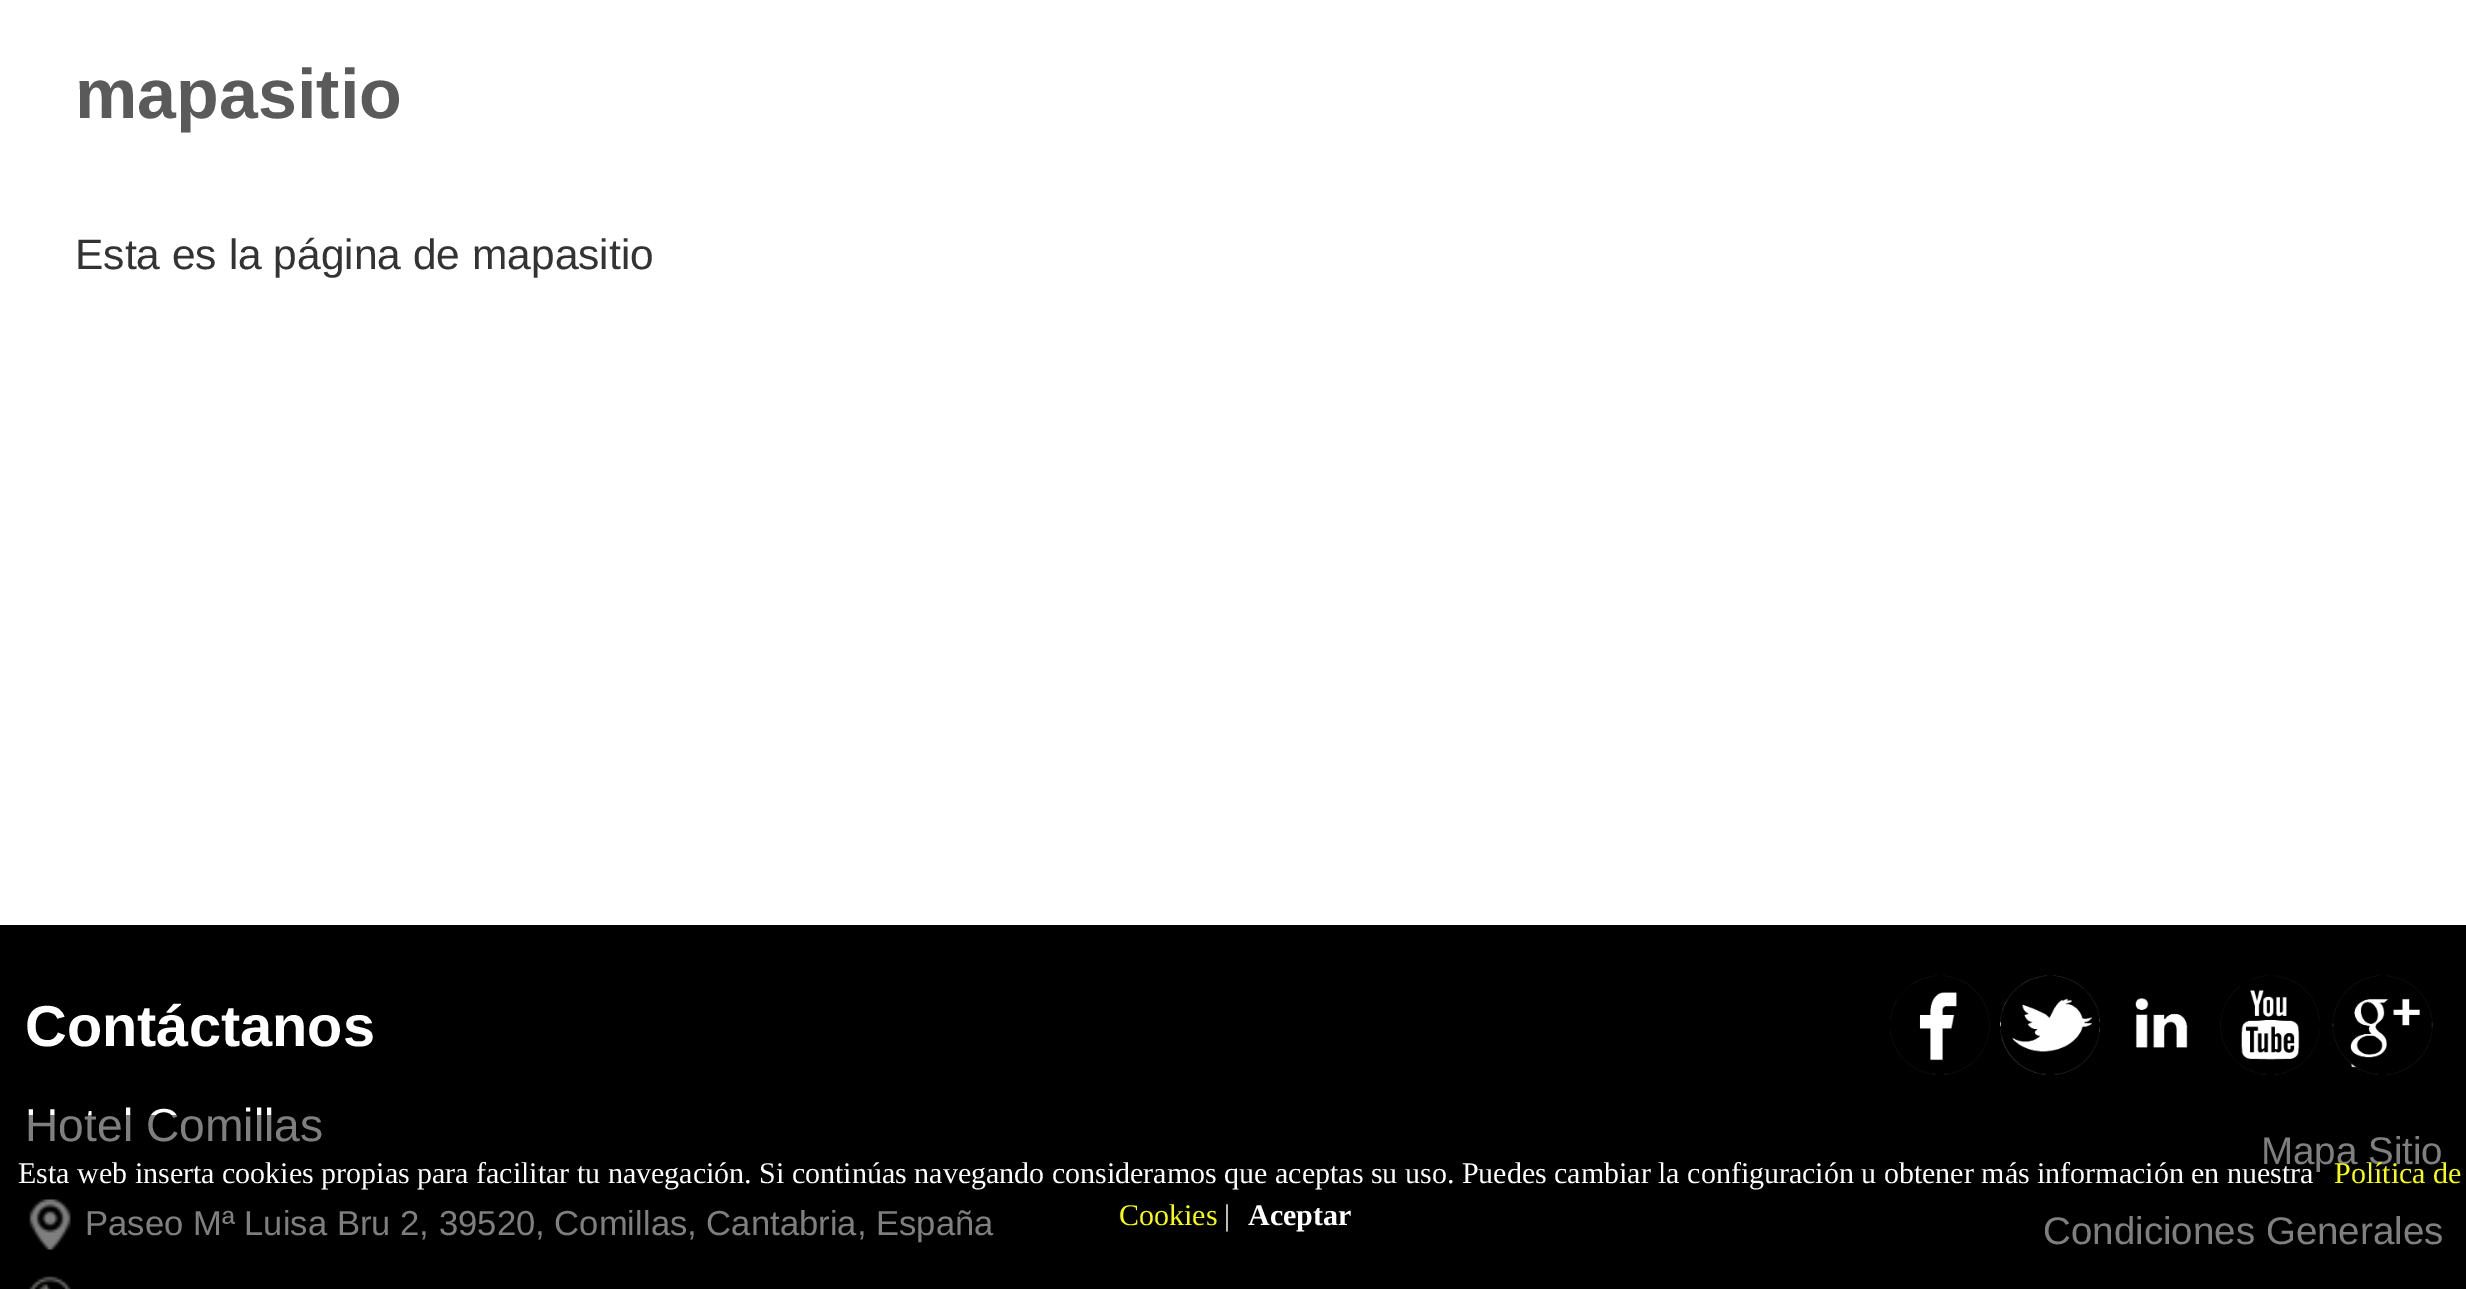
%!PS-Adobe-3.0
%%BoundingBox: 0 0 2466 1289
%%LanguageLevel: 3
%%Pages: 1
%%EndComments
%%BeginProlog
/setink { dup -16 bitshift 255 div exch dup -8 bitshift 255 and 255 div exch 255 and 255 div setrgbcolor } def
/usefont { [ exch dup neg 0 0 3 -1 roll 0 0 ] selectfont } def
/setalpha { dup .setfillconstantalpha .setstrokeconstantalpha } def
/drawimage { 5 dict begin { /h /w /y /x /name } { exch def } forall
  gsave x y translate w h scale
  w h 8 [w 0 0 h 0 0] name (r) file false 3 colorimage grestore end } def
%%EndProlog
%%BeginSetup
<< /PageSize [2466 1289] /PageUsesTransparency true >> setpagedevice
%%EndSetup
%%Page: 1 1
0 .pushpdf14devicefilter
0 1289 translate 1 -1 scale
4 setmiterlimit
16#FFFFFF setink
0 0 2466 1289 rectfill
/LiberationSans-Bold 70 usefont
16#5A5A5A setink
75 118 moveto (mapasitio) show
/LiberationSans-Regular 42.5 usefont
16#333333 setink
75 269 moveto (Esta es la página de mapasitio) show
16#000000 setink
0 925 2466 364 rectfill
/LiberationSans-Bold 57.75 usefont
16#FFFFFF setink
25 1046 moveto (Contáctanos) show
/LiberationSans-Regular 46.25 usefont
25 1141 moveto (Hotel Comillas) show
(img1.raw) 29 1199 42 51 drawimage
/LiberationSans-Regular 34.65 usefont
85 1235 moveto (Paseo Mª Luisa Bru 2, 39520, Comillas, Cantabria, España) show
(img2.raw) 29 1276 42 13 drawimage
(img3.raw) 1890 975 100 100 drawimage
(img4.raw) 2000 975 100 100 drawimage
(img5.raw) 2135 998 53 50 drawimage
(img6.raw) 2220 975 100 100 drawimage
(img7.raw) 2332 975 101 100 drawimage
/LiberationSans-Regular 38.5 usefont
2261 1164 moveto (Mapa Sitio) show
2043 1244 moveto (Condiciones Generales) show
0.5 setalpha
16#000000 setink
28 1115 2414 174 rectfill
/LiberationSerif-Regular 30 usefont
1 setalpha
16#FFFFFF setink
18 1183 moveto (Esta web inserta cookies propias para facilitar tu navegación. Si continúas navegando consideramos que aceptas su uso. Puedes cambiar la configuración u obtener más información en nuestra) show
16#FAFF00 setink
2334 1183 moveto (Política de) show
1119 1225 moveto (Cookies) show
16#FFFFFF setink
1224 1225 moveto (|) show
/LiberationSerif-Bold 30 usefont
1248 1225 moveto (Aceptar) show
.poppdf14devicefilter showpage
%%EOF
